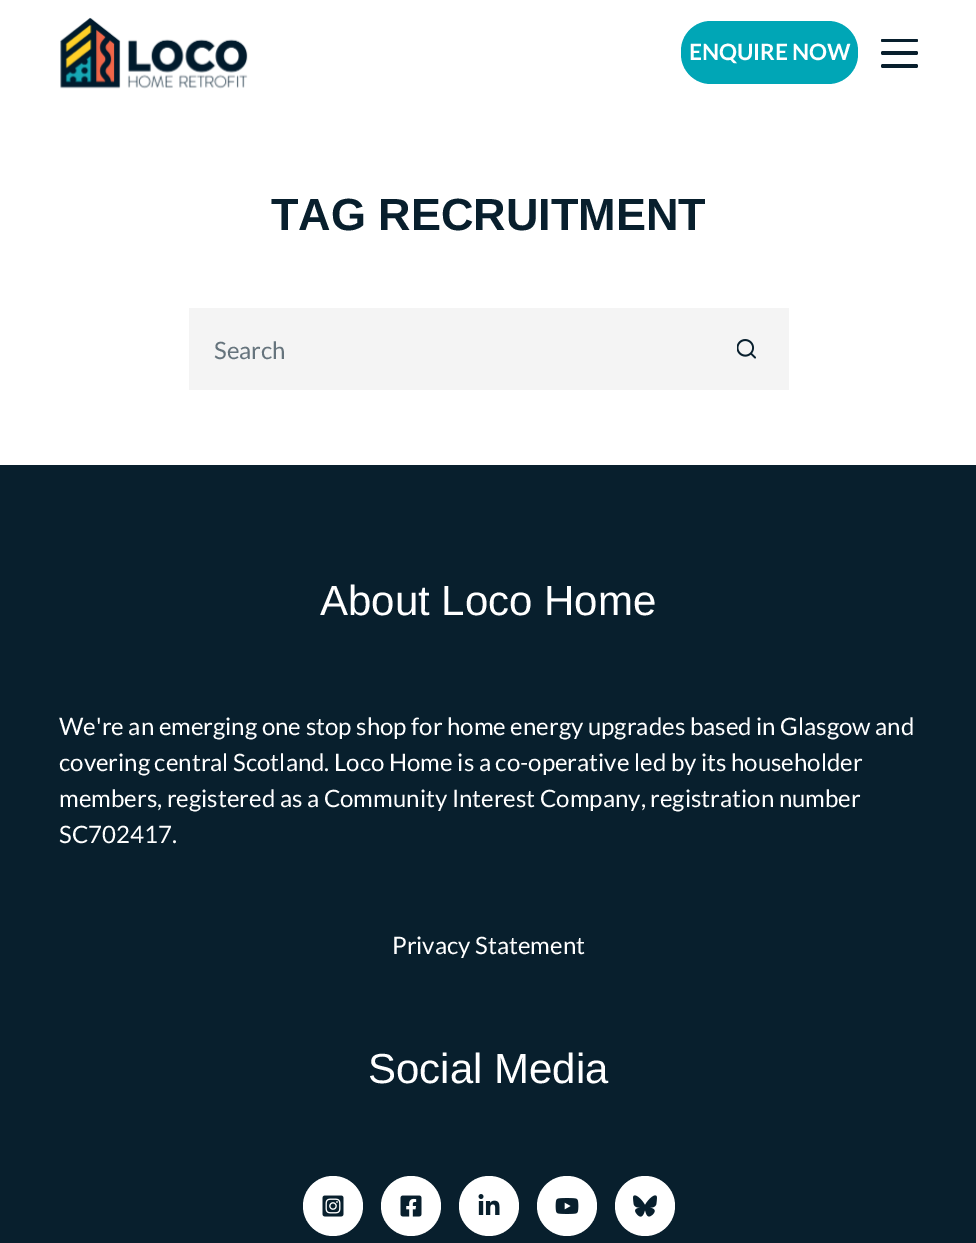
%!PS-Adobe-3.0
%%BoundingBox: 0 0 976 1243
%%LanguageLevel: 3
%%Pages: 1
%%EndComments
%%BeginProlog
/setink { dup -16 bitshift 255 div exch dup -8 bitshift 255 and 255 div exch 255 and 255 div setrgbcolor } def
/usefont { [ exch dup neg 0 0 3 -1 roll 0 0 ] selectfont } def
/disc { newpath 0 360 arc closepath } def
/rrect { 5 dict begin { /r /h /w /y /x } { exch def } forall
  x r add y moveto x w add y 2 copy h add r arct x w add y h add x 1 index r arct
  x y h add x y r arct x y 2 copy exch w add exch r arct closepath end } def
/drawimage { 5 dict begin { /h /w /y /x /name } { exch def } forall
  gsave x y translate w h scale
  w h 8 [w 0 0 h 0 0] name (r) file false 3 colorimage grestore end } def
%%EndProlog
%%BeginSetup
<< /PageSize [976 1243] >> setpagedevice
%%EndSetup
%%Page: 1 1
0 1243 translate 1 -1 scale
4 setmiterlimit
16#FFFFFF setink
0 0 976 1243 rectfill
(img1.raw) 60 17 188 72 drawimage
16#00A6B6 setink
681 21 177 63 30 rrect fill
/Lato-Bold 22.5 usefont
16#FFFFFF setink
689 60 moveto (ENQUIRE NOW) show
16#081F2D setink
881 39 37 3 1.5 rrect fill
881 51 37 4 2 rrect fill
881 64 37 4 2 rrect fill
/LiberationSans-Bold 45 usefont
271 230 moveto (TAG RECRUITMENT) show
16#F4F4F4 setink
189 308 600 82 rectfill
/Lato-Regular 24 usefont
16#66747D setink
214 359 moveto (Search) show
(img2.raw) 737 339 19 20 drawimage
16#081F2D setink
0 465 976 778 rectfill
/LiberationSans-Regular 42 usefont
16#FFFFFF setink
320 615 moveto (About Loco Home) show
/Lato-Regular 24 usefont
[
    [(We're an emerging one stop shop for home energy upgrades based in Glasgow and) 59 735]
    [(covering central Scotland. Loco Home is a co-operative led by its householder) 59 771]
    [(members, registered as a Community Interest Company, registration number) 59 807]
    [(SC702417.) 59 843]
    [(Privacy Statement) 392 954]
] { aload pop moveto show } forall
/LiberationSans-Regular 42 usefont
368 1083 moveto (Social Media) show
333 1206 30 disc fill
(img3.raw) 322 1195 22 22 drawimage
411 1206 30 disc fill
(img4.raw) 400 1195 22 22 drawimage
489 1206 30 disc fill
(img5.raw) 478 1194 22 21 drawimage
567 1206 30 disc fill
(img6.raw) 555 1198 24 16 drawimage
645 1206 30 disc fill
(img7.raw) 633 1195 24 22 drawimage
showpage
%%EOF
